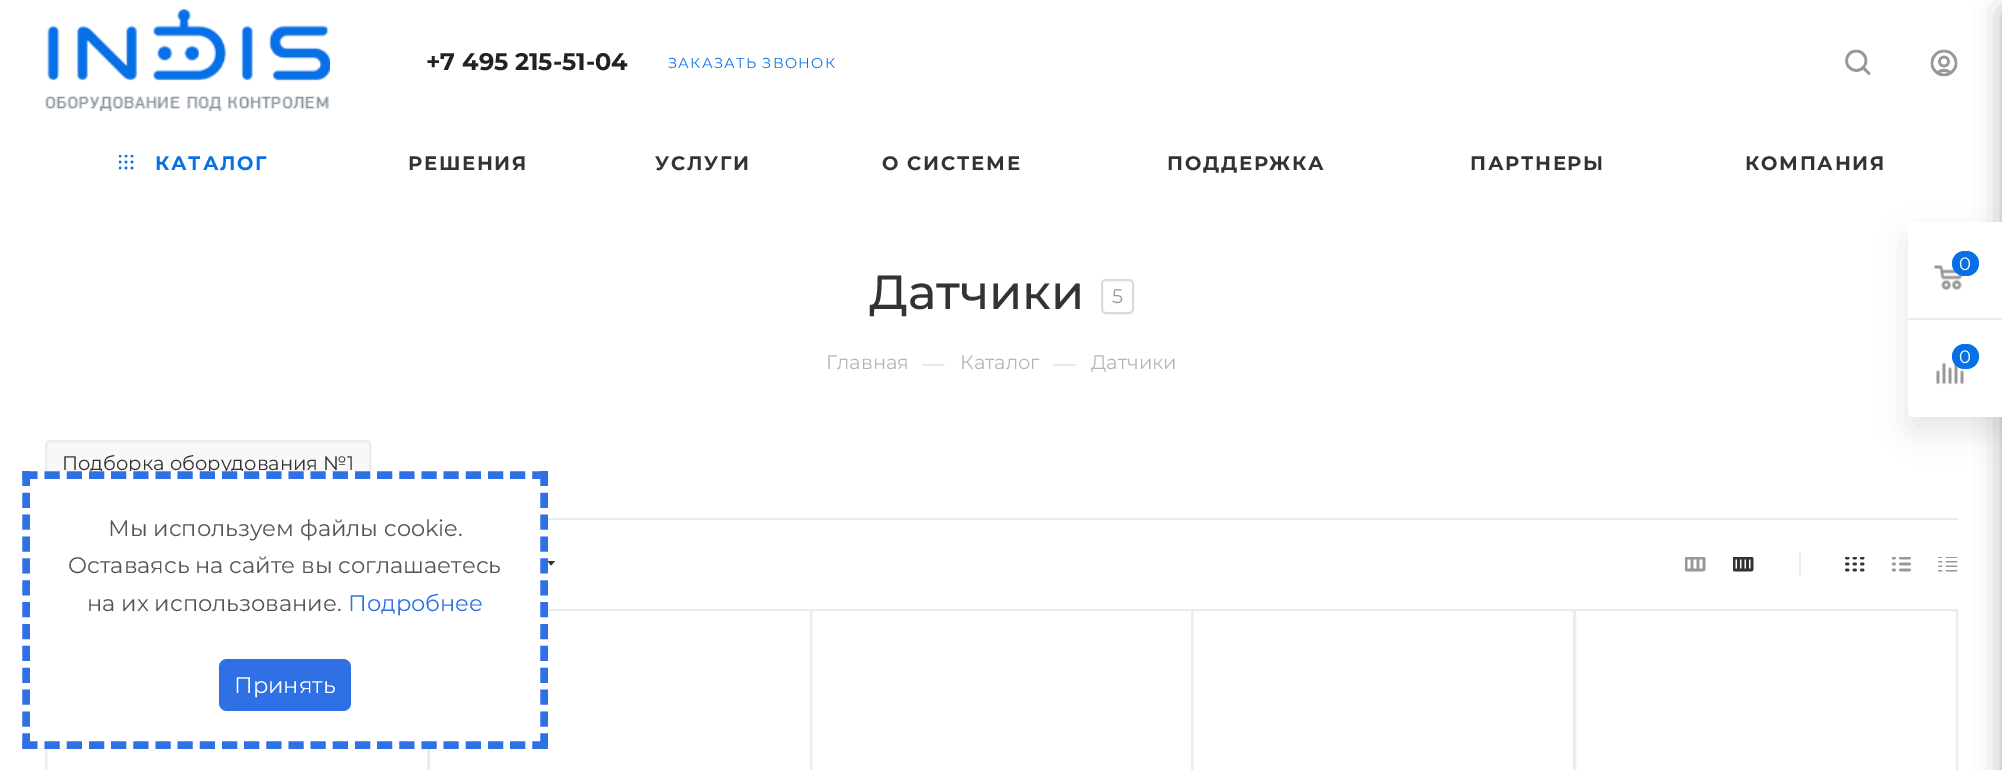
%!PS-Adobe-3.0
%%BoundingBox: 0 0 2002 770
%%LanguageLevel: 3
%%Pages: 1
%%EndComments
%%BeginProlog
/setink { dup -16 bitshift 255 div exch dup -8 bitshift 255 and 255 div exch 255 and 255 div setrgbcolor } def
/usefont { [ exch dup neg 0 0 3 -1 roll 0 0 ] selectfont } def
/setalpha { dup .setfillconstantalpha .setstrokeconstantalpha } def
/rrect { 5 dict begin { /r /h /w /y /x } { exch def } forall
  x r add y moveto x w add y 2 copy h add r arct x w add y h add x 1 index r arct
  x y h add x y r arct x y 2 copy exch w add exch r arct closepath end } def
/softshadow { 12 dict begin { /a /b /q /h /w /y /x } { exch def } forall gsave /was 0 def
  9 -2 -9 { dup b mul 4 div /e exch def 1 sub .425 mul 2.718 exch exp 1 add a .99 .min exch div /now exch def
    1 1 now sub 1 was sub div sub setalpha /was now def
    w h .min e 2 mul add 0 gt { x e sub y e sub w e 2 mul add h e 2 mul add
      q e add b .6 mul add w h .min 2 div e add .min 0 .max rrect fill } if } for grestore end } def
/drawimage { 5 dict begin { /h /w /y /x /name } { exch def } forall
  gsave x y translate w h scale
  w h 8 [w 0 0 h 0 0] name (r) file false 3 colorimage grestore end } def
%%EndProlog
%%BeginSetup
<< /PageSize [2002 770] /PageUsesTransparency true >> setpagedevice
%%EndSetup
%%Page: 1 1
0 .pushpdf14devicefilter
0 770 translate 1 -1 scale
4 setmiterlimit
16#FFFFFF setink
0 0 2002 770 rectfill
(img1.raw) 45 9 285 102 drawimage
/Montserrat-Bold 24 usefont
16#222222 setink
426 70 moveto (+7 495 215-51-04) show
/Montserrat-Regular 14.4 usefont
16#0870E6 setink
668 68 moveto 1.25 0 (ЗАКАЗАТЬ ЗВОНОК) ashow
(img2.raw) 1845 49 26 26 drawimage
(img3.raw) 1930 49 28 28 drawimage
(img4.raw) 119 155 15 15 drawimage
/Montserrat-Bold 19.5 usefont
155 170 moveto 1.75 0 (КАТАЛОГ) ashow
16#333333 setink
408 170 moveto 1.75 0 (РЕШЕНИЯ) ashow
655 170 moveto 1.75 0 (УСЛУГИ) ashow
882 170 moveto 1.75 0 (О СИСТЕМЕ) ashow
1167 170 moveto 1.75 0 (ПОДДЕРЖКА) ashow
1470 170 moveto 1.75 0 (ПАРТНЕРЫ) ashow
1745 170 moveto 1.75 0 (КОМПАНИЯ) ashow
/Montserrat-Medium 48 usefont
869 309 moveto (Датчики) show
16#DBDBDB setink
2 setlinewidth
1102 280 31 33 4 rrect stroke
/Montserrat-Regular 19.5 usefont
16#999999 setink
1112 303 moveto (5) show
16#B6B5B5 setink
826 369 moveto (Главная) show
/Montserrat-Regular 22.5 usefont
16#DDDDDD setink
922 371 moveto (—) show
/Montserrat-Regular 19.5 usefont
16#B6B5B5 setink
960 369 moveto (Каталог) show
/Montserrat-Regular 22.5 usefont
16#DDDDDD setink
1053 371 moveto (—) show
/Montserrat-Regular 19.5 usefont
16#B6B5B5 setink
1091 369 moveto (Датчики) show
16#ECECEC setink
548 518 1410 2 rectfill
16#F8F8F8 setink
46 441 324 46 4 rrect gsave fill grestore
16#ECECEC setink
stroke
16#333333 setink
62 470 moveto (Подборка оборудования №1) show
547.5 561 moveto 555 561 lineto 551 565.5 lineto closepath eofill
(img5.raw) 1685 557 21 15 drawimage
(img6.raw) 1733 557 21 15 drawimage
16#ECECEC setink
1799 552 2 24 rectfill
(img7.raw) 1845 557 20 15 drawimage
(img8.raw) 1892 557 19 15 drawimage
(img9.raw) 1938 557 20 15 drawimage
46 610 382 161 rectstroke
429 610 382 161 rectstroke
811 610 381 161 rectstroke
1192 610 382 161 rectstroke
1575 610 382 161 rectstroke
16#2C2C2C setink
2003 9 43 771 3 13.5 0.4 softshadow
16#000000 setink
1908 237 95 195 6 15 0.1 softshadow
16#FFFFFF setink
1914 222 moveto 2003 222 lineto 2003 417 lineto 1914 417 lineto 1910.5 417 1908 414.5 1908 411 curveto 1908 228 lineto 1908 224.5 1910.5 222 1914 222 curveto closepath fill
16#ECECEC setink
1908 318 94 2 rectfill
(img10.raw) 1933 265 30 25 drawimage
16#0870E6 setink
1952 251 27 25 12.5 rrect fill
1959 252 1 23 rectfill
/Montserrat-Regular 18 usefont
16#FFFFFF setink
1959 270 moveto (0) show
(img11.raw) 1936 362 28 23 drawimage
16#0870E6 setink
1952 344 27 25 12.5 rrect fill
16#FFFFFF setink
1959 363 moveto (0) show
45 471 503 278 rectfill
16#2F70E5 setink
7.5 setlinewidth
[15 7.17] 0 setdash
22.5 475 moveto 547.5 475 lineto stroke
[15 6.87] 0 setdash
544 471 moveto 544 748.5 lineto stroke
[15 7.17] 0 setdash
22.5 745 moveto 547.5 745 lineto stroke
[15 6.87] 0 setdash
26 471 moveto 26 748.5 lineto stroke
/Montserrat-Regular 22.5 usefont
16#555555 setink
[
    [(Мы используем файлы cookie.) 108 536]
    [(Оставаясь на сайте вы соглашаетесь) 68 573]
    [(на их использование.) 87 611]
] { aload pop moveto show } forall
16#2F70E5 setink
348 611 moveto (Подробнее) show
219 659 132 52 8 rrect fill
16#FFFFFF setink
234 693 moveto (Принять) show
.poppdf14devicefilter showpage
%%EOF
